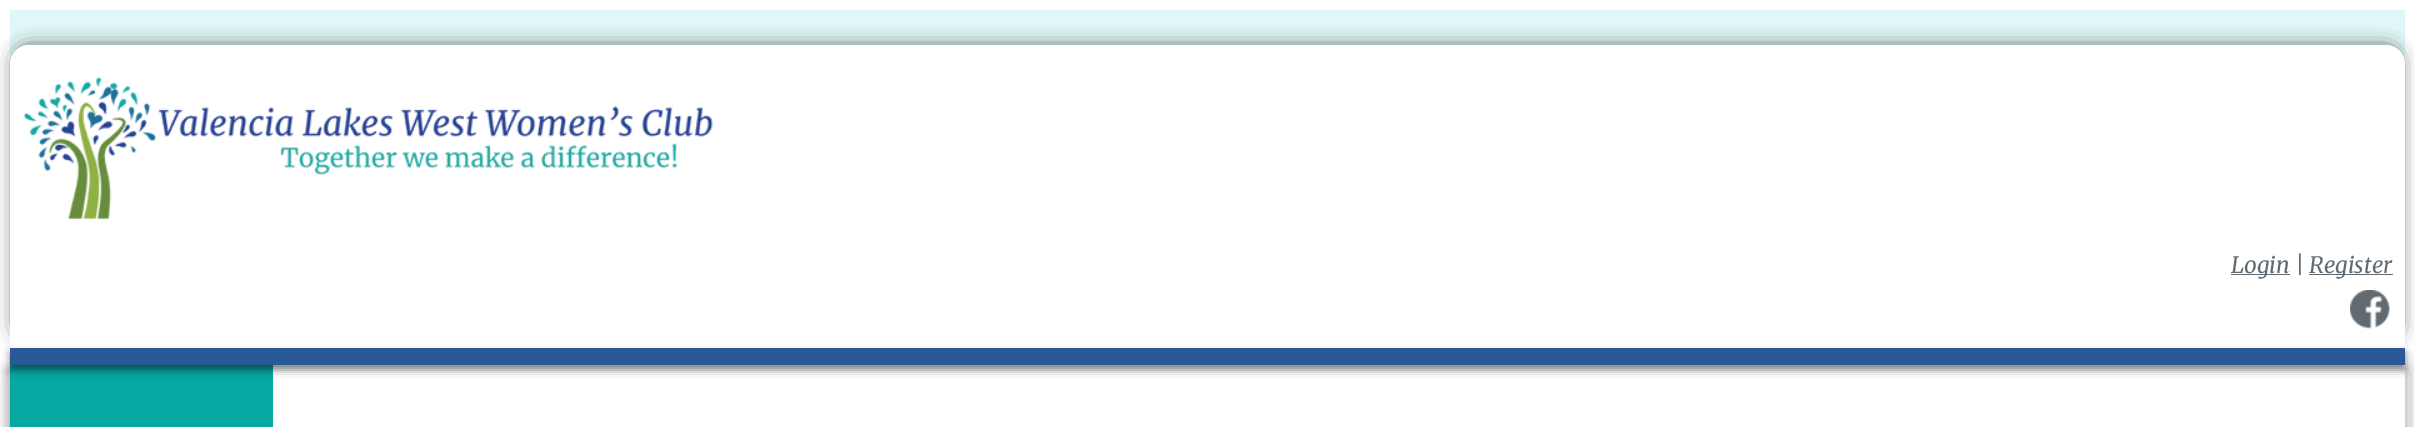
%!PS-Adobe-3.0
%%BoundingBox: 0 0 2414 427
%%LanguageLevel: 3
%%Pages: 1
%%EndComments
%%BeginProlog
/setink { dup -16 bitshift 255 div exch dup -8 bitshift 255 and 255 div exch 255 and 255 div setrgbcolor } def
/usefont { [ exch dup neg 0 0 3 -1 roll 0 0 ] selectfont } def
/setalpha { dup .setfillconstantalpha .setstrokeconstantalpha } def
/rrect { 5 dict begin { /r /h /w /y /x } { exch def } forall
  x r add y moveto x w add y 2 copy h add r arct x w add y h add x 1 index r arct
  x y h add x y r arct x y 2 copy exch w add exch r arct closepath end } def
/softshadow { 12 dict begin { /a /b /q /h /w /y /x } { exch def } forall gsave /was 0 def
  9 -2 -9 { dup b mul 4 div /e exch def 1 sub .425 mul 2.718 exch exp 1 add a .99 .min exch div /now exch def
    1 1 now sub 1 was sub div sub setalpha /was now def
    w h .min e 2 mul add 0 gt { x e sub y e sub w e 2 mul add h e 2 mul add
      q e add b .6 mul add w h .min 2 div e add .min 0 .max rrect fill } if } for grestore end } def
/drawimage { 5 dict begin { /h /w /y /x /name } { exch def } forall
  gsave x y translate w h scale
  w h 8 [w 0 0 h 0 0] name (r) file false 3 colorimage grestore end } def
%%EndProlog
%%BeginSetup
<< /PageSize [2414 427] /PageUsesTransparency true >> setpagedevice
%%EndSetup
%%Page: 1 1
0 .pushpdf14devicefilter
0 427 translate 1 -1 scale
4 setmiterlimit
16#FFFFFF setink
0 0 2414 427 rectfill
16#E0F7F7 setink
10 10 2395 54 rectfill
16#000000 setink
16 48 2383 290 13 9.5 0.75 softshadow
16#FFFFFF setink
29 45 moveto 2386 45 lineto 2396.5 45 2405 53.5 2405 64 curveto 2405 348 lineto 10 348 lineto 10 64 lineto 10 53.5 18.5 45 29 45 curveto closepath fill
(img1.raw) 23 77 690 142 drawimage
16#606A70 setink
2231 274 59 1 rectfill
/Merriweather-LightItalic 22.5 usefont
2231 273 moveto (Login |) show
2309 274 84 1 rectfill
2309 273 moveto (Register) show
(img2.raw) 2350 290 40 39 drawimage
16#000000 setink
5 370 2385 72 0 5 0.25 softshadow
25 370 2385 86 0 9.5 0.25 softshadow
16#FFFFFF setink
273 365 2132 62 rectfill
16#07A7A2 setink
10 365 263 62 rectfill
16#000000 setink
10 353 2395 17 0 4 0.5 softshadow
16#295997 setink
10 348 2395 17 rectfill
.poppdf14devicefilter showpage
%%EOF
